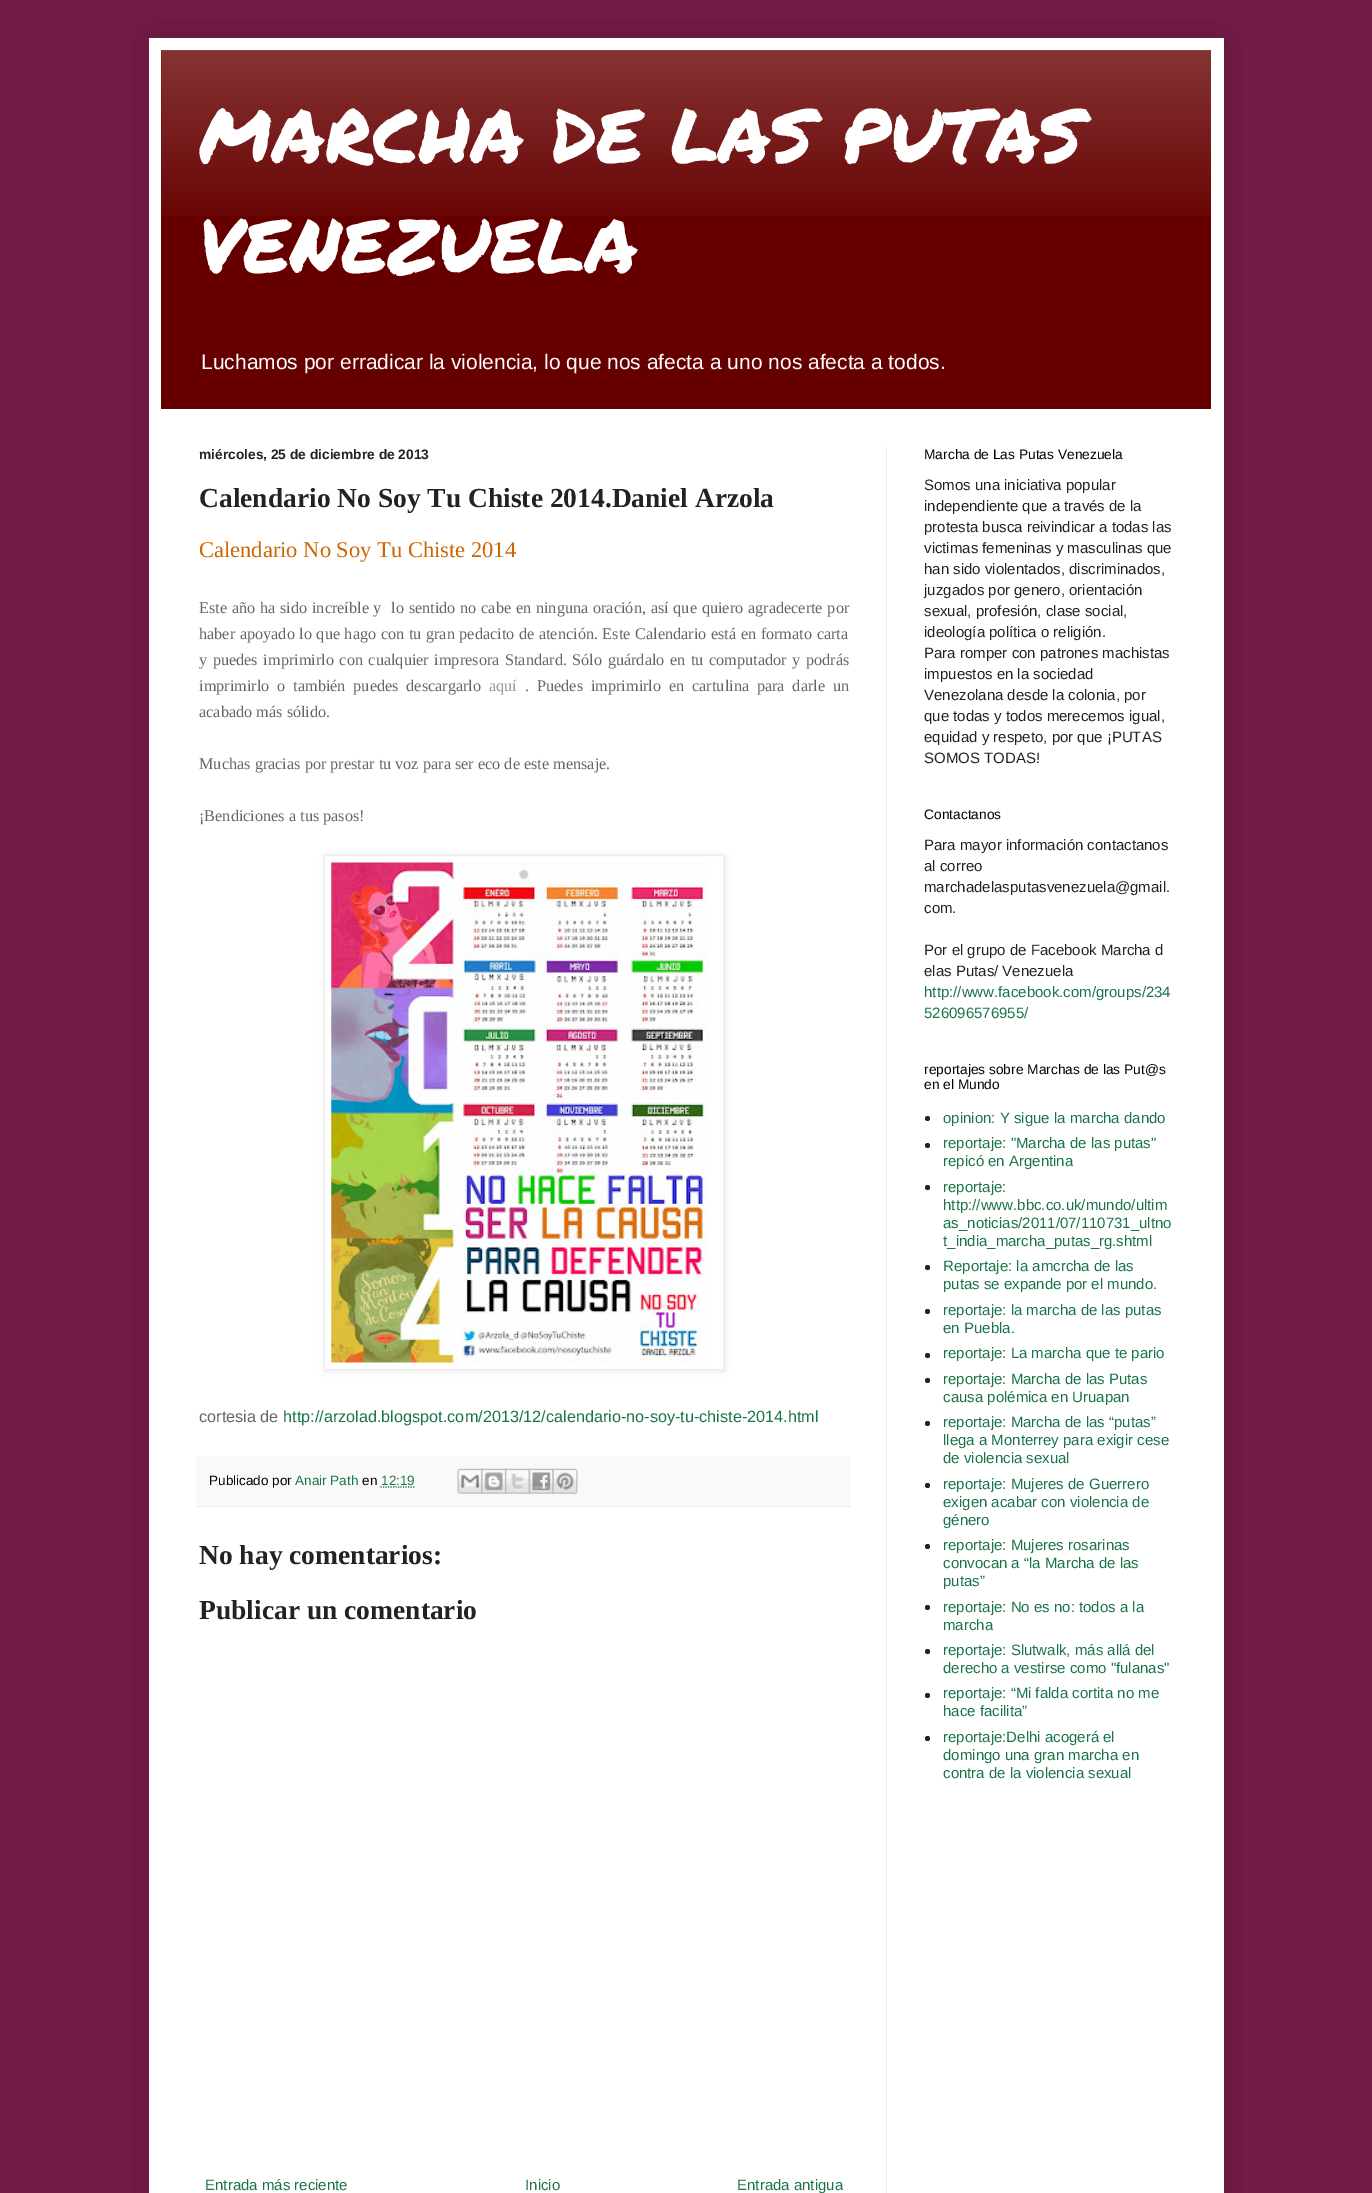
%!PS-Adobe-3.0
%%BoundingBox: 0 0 1372 2193
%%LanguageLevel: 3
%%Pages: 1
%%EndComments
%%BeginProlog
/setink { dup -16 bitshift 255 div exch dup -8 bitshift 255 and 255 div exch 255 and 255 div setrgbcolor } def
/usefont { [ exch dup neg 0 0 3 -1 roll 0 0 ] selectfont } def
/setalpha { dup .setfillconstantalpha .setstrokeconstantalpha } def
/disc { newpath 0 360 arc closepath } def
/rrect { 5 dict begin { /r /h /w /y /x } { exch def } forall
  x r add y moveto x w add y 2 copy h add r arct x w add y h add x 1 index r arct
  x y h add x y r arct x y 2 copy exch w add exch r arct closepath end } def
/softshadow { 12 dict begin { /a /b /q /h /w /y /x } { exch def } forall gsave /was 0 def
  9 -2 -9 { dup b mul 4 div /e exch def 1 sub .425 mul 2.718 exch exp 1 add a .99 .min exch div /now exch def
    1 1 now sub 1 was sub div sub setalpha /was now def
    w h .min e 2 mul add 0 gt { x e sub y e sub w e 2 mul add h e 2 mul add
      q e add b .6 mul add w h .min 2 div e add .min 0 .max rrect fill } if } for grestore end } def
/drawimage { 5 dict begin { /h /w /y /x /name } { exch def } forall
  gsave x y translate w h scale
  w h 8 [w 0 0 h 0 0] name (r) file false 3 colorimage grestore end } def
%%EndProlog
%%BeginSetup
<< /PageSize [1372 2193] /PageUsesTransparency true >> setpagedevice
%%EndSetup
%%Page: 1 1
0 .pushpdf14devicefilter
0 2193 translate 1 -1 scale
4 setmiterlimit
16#741B47 setink
0 0 1372 2193 rectfill
16#000000 setink
149 38 1075 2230 0 25 0.15 softshadow
16#FFFFFF setink
149 38 1075 2155 rectfill
16#660000 setink
161 50 1050 359 rectfill
(img1.raw) 161 50 1050 166 drawimage
/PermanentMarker-Regular 75 usefont
16#FFFFFF setink
199 163 moveto (MARCHA DE LAS PUTAS) show
199 273 moveto (VENEZUELA) show
/LiberationSans-Regular 21 usefont
201 369 moveto (Luchamos por erradicar la violencia, lo que nos afecta a uno nos afecta a todos.) show
16#EEEEEE setink
886 446 1 1747 rectfill
/LiberationSans-Bold 13.75 usefont
16#222222 setink
199 459 moveto (miércoles, 25 de diciembre de 2013) show
/LiberationSerif-Bold 27.5 usefont
199 507 moveto (Calendario No Soy Tu Chiste 2014.Daniel Arzola) show
/LiberationSerif-Regular 22.5 usefont
16#CC6600 setink
199 557 moveto (Calendario No Soy Tu Chiste 2014) show
/LiberationSerif-Regular 16.25 usefont
16#666666 setink
199 613 moveto 0.7 0 32 (Este año ha sido increíble y  lo sentido no cabe en ninguna oración, así que quiero agradecerte por) widthshow
199 639 moveto 0.5 0 32 (haber apoyado lo que hago con tu gran pedacito de atención. Este Calendario está en formato carta) widthshow
199 665 moveto 1.5 0 32 (y puedes imprimirlo con cualquier impresora Standard. Sólo guárdalo en tu computador y podrás) widthshow
199 691 moveto 3.75 0 32 (imprimirlo o también puedes descargarlo) widthshow
16#999999 setink
489 691 moveto (aquí) show
16#666666 setink
525 691 moveto 3.75 0 32 (. Puedes imprimirlo en cartulina para darle un) widthshow
[
    [(acabado más sólido.) 199 717]
    [(Muchas gracias por prestar tu voz para ser eco de este mensaje.) 199 769]
    [(¡Bendiciones a tus pasos!) 199 821]
] { aload pop moveto show } forall
16#000000 setink
325 856 400 515 0 3 0.1 softshadow
16#FFFFFF setink
324.5 855.5 moveto 723.5 855.5 lineto 723.5 1369.5 lineto 324.5 1369.5 lineto closepath gsave fill grestore
16#EEEEEE setink
stroke
(img2.raw) 331 862 379 501 drawimage
/LiberationSans-Regular 16.25 usefont
16#666666 setink
199 1422 moveto (cortesia de) show
16#1A7447 setink
283 1422 moveto (http://arzolad.blogspot.com/2013/12/calendario-no-soy-tu-chiste-2014.html) show
16#F9F9F9 setink
196 1456 655 52 rectfill
16#EEEEEE setink
196 1506 655 1 rectfill
/LiberationSans-Regular 13.5 usefont
16#000000 setink
209 1485 moveto (Publicado por) show
16#1A7447 setink
295 1485 moveto (Anair Path) show
16#000000 setink
362 1485 moveto (en) show
16#1A7447 setink
381 1485 moveto (12:19) show
1.2 setlinewidth
[1.25 1.25] 0 setdash
380.5 1487 moveto 414.5 1487 lineto stroke
(img3.raw) 457 1468 26 26 drawimage
(img4.raw) 481 1468 26 26 drawimage
(img5.raw) 505 1468 25 26 drawimage
(img6.raw) 528 1468 26 26 drawimage
(img7.raw) 552 1468 26 26 drawimage
/LiberationSerif-Bold 27.5 usefont
16#222222 setink
199 1564 moveto (No hay comentarios:) show
199 1619 moveto (Publicar un comentario) show
/LiberationSans-Regular 15 usefont
16#1A7447 setink
[
    [(Entrada más reciente) 205 2190]
    [(Inicio) 525 2190]
    [(Entrada antigua) 737 2190]
] { aload pop moveto show } forall
/LiberationSans-Regular 13.75 usefont
16#000000 setink
924 459 moveto (Marcha de Las Putas Venezuela) show
/LiberationSans-Regular 15 usefont
16#222222 setink
[
    [(Somos una iniciativa popular) 924 490]
    [(independiente que a través de la) 924 511]
    [(protesta busca reivindicar a todas las) 924 532]
    [(victimas femeninas y masculinas que) 924 553]
    [(han sido violentados, discriminados,) 924 574]
    [(juzgados por genero, orientación) 924 595]
    [(sexual, profesión, clase social,) 924 616]
    [(ideología política o religión.) 924 637]
    [(Para romper con patrones machistas) 924 658]
    [(impuestos en la sociedad) 924 679]
    [(Venezolana desde la colonia, por) 924 700]
    [(que todas y todos merecemos igual,) 924 721]
    [(equidad y respeto, por que ¡PUTAS) 924 742]
    [(SOMOS TODAS!) 924 763]
] { aload pop moveto show } forall
/LiberationSans-Regular 13.75 usefont
16#000000 setink
924 819 moveto (Contactanos) show
/LiberationSans-Regular 15 usefont
16#222222 setink
[
    [(Para mayor información contactanos) 924 850]
    [(al correo) 924 871]
    [(marchadelasputasvenezuela@gmail.) 924 892]
    [(com.) 924 913]
    [(Por el grupo de Facebook Marcha d) 924 955]
    [(elas Putas/ Venezuela) 924 976]
] { aload pop moveto show } forall
16#1A7447 setink
924 997 moveto (http://www.facebook.com/groups/234) show
924 1018 moveto (526096576955/) show
/LiberationSans-Regular 13.75 usefont
16#000000 setink
924 1074 moveto (reportajes sobre Marchas de las Put@s) show
924 1089 moveto (en el Mundo) show
16#222222 setink
927.5 1118.5 2.5 disc fill
/LiberationSans-Regular 15 usefont
16#1A7447 setink
943 1123 moveto (opinion: Y sigue la marcha dando) show
16#222222 setink
927.5 1145.5 2.5 disc fill
16#1A7447 setink
943 1148 moveto (reportaje: "Marcha de las putas") show
943 1166 moveto (repicó en Argentina) show
16#222222 setink
927.5 1187.5 2.5 disc fill
16#1A7447 setink
[
    [(reportaje:) 943 1192]
    [(http://www.bbc.co.uk/mundo/ultim) 943 1210]
    [(as_noticias/2011/07/110731_ultno) 943 1228]
    [(t_india_marcha_putas_rg.shtml) 943 1246]
] { aload pop moveto show } forall
16#222222 setink
927.5 1267.5 2.5 disc fill
16#1A7447 setink
943 1271 moveto (Reportaje: la amcrcha de las) show
943 1289 moveto (putas se expande por el mundo.) show
16#222222 setink
927.5 1311.5 2.5 disc fill
16#1A7447 setink
943 1315 moveto (reportaje: la marcha de las putas) show
943 1333 moveto (en Puebla.) show
16#222222 setink
927.5 1355.5 2.5 disc fill
16#1A7447 setink
943 1358 moveto (reportaje: La marcha que te pario) show
16#222222 setink
927.5 1380.5 2.5 disc fill
16#1A7447 setink
943 1384 moveto (reportaje: Marcha de las Putas) show
943 1402 moveto (causa polémica en Uruapan) show
16#222222 setink
927.5 1423.5 2.5 disc fill
16#1A7447 setink
[
    [(reportaje: Marcha de las “putas”) 943 1427]
    [(llega a Monterrey para exigir cese) 943 1445]
    [(de violencia sexual) 943 1463]
] { aload pop moveto show } forall
16#222222 setink
927.5 1485.5 2.5 disc fill
16#1A7447 setink
[
    [(reportaje: Mujeres de Guerrero) 943 1489]
    [(exigen acabar con violencia de) 943 1507]
    [(género) 943 1525]
] { aload pop moveto show } forall
16#222222 setink
927.5 1546.5 2.5 disc fill
16#1A7447 setink
[
    [(reportaje: Mujeres rosarinas) 943 1550]
    [(convocan a “la Marcha de las) 943 1568]
    [(putas”) 943 1586]
] { aload pop moveto show } forall
16#222222 setink
927.5 1607.5 2.5 disc fill
16#1A7447 setink
943 1612 moveto (reportaje: No es no: todos a la) show
943 1630 moveto (marcha) show
16#222222 setink
927.5 1651.5 2.5 disc fill
16#1A7447 setink
943 1655 moveto (reportaje: Slutwalk, más allá del) show
943 1673 moveto (derecho a vestirse como "fulanas") show
16#222222 setink
927.5 1695.5 2.5 disc fill
16#1A7447 setink
943 1698 moveto (reportaje: “Mi falda cortita no me) show
943 1716 moveto (hace facilita”) show
16#222222 setink
927.5 1738.5 2.5 disc fill
16#1A7447 setink
[
    [(reportaje:Delhi acogerá el) 943 1742]
    [(domingo una gran marcha en) 943 1760]
    [(contra de la violencia sexual) 943 1778]
] { aload pop moveto show } forall
.poppdf14devicefilter showpage
%%EOF
